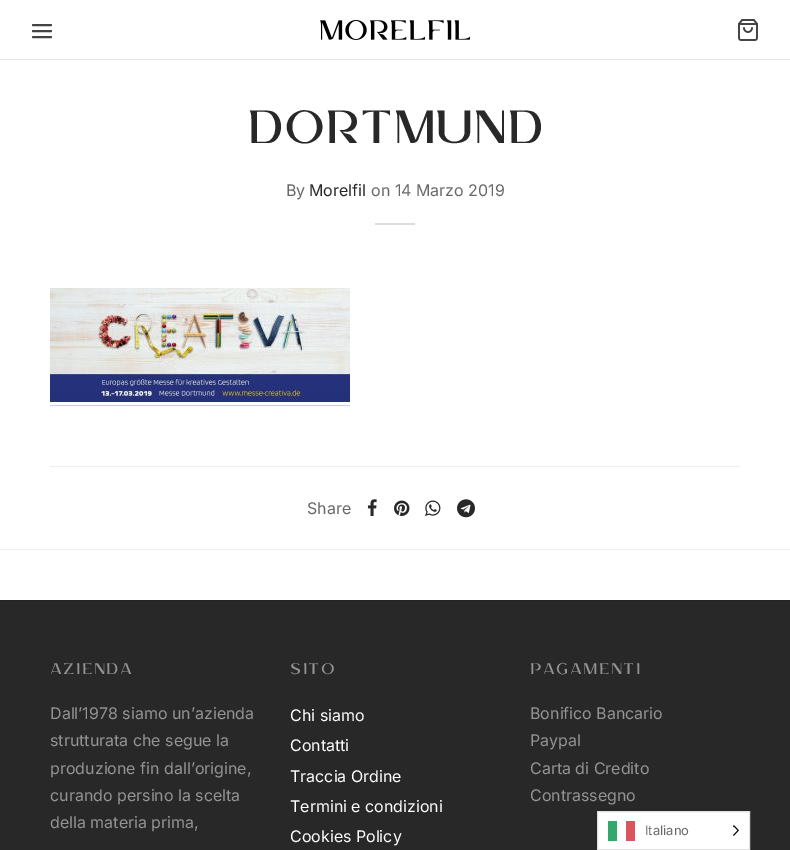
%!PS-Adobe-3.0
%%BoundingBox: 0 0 790 850
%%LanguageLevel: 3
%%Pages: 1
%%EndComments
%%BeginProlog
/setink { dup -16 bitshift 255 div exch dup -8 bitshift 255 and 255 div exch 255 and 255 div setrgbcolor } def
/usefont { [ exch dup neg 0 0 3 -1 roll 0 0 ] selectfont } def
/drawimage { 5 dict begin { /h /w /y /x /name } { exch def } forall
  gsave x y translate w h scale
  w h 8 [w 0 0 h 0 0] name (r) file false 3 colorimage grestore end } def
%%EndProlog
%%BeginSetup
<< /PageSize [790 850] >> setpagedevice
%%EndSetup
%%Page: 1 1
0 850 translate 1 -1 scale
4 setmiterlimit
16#FFFFFF setink
0 0 790 850 rectfill
16#444444 setink
2 setlinewidth
1 setlinecap
1 setlinejoin
33 31 moveto 51 31 lineto 33 25 moveto 51 25 lineto 33 37 moveto 51 37 lineto stroke
(img1.raw) 320 20 150 20 drawimage
(img2.raw) 738 19 20 22 drawimage
16#E6E6E6 setink
0 59 790 1 rectfill
/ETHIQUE-Regular 48 usefont
16#282828 setink
247 143 moveto (DORTMUND) show
/Inter-Regular 16 usefont
16#686868 setink
286 196 moveto (By) show
16#282828 setink
309 196 moveto (Morelfil) show
16#686868 setink
371 196 moveto (on 14 Marzo 2019) show
16#DDDDDD setink
375 223 40 2 rectfill
16#CCCCCC setink
50 405 300 1 rectfill
(img3.raw) 50 288 300 114 drawimage
16#EEEEEE setink
50 466 690 1 rectfill
16#686868 setink
307 514 moveto (Share) show
(img4.raw) 367 499 10 17 drawimage
(img5.raw) 394 500 16 16 drawimage
(img6.raw) 425 500 16 16 drawimage
(img7.raw) 457 499 18 19 drawimage
[
    [0 549 790 1 16#EEEEEE]
    [0 601 790 249 16#282828]
    [0 600 790 1 16#242424]
] { aload pop setink rectfill } forall
/ETHIQUE-Regular 16 usefont
16#949494 setink
50 674 moveto 1.5 0 (AZIENDA) ashow
/Inter-Regular 16 usefont
[
    [(Dall’1978 siamo un’azienda) 50 719]
    [(strutturata che segue la) 50 746]
    [(produzione fin dall’origine,) 50 774]
    [(curando persino la scelta) 50 801]
    [(della materia prima,) 50 828]
] { aload pop moveto show } forall
/ETHIQUE-Regular 16 usefont
290 674 moveto 1.5 0 (SITO) ashow
/Inter-Regular 16 usefont
16#FFFFFF setink
[
    [(Chi siamo) 290 721]
    [(Contatti) 290 751]
    [(Traccia Ordine) 290 782]
    [(Termini e condizioni) 290 812]
    [(Cookies Policy) 290 842]
] { aload pop moveto show } forall
/ETHIQUE-Regular 16 usefont
16#949494 setink
530 674 moveto 1.5 0 (PAGAMENTI) ashow
/Inter-Regular 16 usefont
[
    [(Bonifico Bancario) 530 719]
    [(Paypal) 530 746]
    [(Carta di Credito) 530 774]
    [(Contrassegno) 530 801]
] { aload pop moveto show } forall
16#FFFFFF setink
597.5 811.5 moveto 749.5 811.5 lineto 749.5 849.5 lineto 597.5 849.5 lineto closepath gsave fill grestore
16#E0E0E0 setink
1 setlinewidth
0 setlinecap
0 setlinejoin
stroke
16#33A86B setink
608 821 9 20 rectfill
16#D8555F setink
626 821 9 20 rectfill
/Inter-Regular 13 usefont
16#686868 setink
645 835 moveto (Italiano) show
(img8.raw) 733 825 6 11 drawimage
showpage
%%EOF
